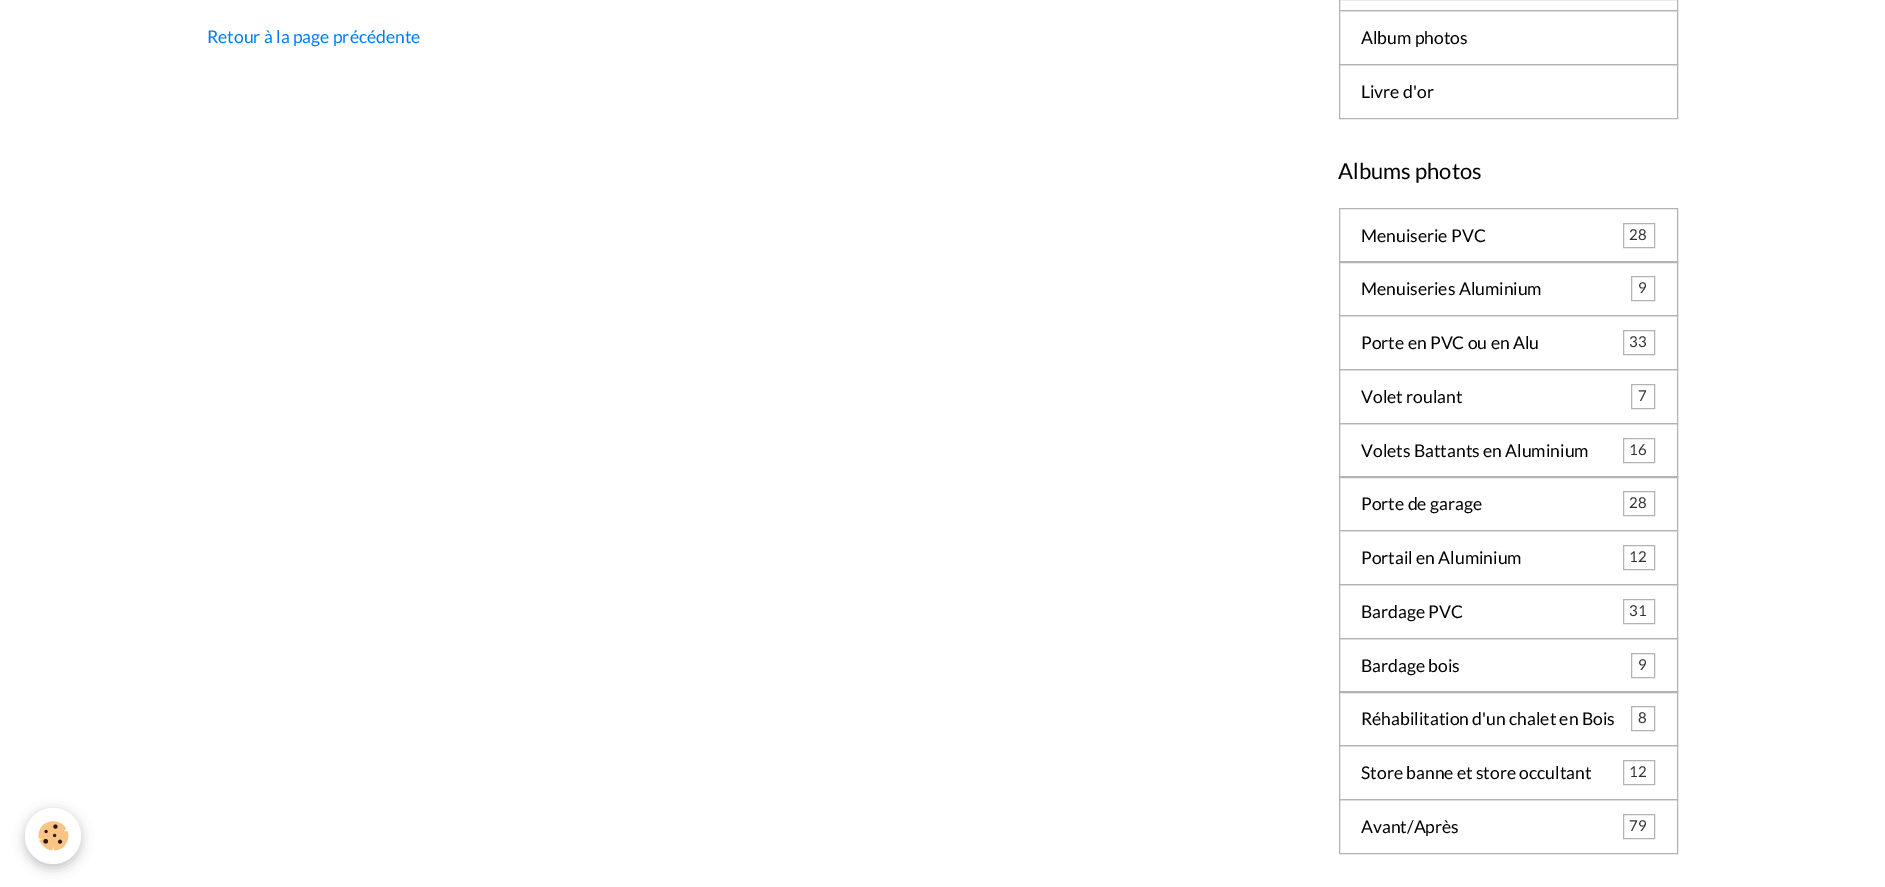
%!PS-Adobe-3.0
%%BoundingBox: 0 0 1885 887
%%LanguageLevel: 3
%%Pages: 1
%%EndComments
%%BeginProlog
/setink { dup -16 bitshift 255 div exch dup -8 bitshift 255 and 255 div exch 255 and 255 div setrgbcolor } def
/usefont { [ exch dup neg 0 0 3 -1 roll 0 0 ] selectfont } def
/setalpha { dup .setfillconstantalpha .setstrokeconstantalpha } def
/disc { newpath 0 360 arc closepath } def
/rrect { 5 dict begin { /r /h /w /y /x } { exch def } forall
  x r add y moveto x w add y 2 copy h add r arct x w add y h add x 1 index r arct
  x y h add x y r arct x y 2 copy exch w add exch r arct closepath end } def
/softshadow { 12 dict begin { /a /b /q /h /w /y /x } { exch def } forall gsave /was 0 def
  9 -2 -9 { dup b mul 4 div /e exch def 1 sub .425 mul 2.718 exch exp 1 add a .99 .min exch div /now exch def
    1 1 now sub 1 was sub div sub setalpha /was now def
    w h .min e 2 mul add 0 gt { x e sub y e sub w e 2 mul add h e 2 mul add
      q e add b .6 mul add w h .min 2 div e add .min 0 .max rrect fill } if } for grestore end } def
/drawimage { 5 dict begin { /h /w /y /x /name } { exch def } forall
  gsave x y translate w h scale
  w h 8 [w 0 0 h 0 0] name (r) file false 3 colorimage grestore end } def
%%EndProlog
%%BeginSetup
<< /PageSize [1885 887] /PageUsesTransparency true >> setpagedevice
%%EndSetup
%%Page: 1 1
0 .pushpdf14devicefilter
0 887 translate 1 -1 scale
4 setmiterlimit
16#FFFFFF setink
0 0 1885 887 rectfill
16#000000 setink
25 811 56 57 28 6 0.24 softshadow
16#FFFFFF setink
53 836 28 disc fill
(img1.raw) 38 821 31 30 drawimage
/Lato-Regular 17.5 usefont
16#007BFF setink
207 43 moveto (Retour à la page précédente) show
16#B3B3B3 setink
1339.5 -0.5 338 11 rectstroke
1339.5 10.5 338 54 rectstroke
16#000000 setink
1361 44 moveto (Album photos) show
16#B3B3B3 setink
1339.5 64.5 338 54 rectstroke
16#000000 setink
1361 98 moveto (Livre d'or) show
/Lato-Regular 22 usefont
1338 179 moveto (Albums photos) show
16#B3B3B3 setink
1339.5 208.5 338 54 rectstroke
/Lato-Regular 17.5 usefont
16#000000 setink
1361 242 moveto (Menuiserie PVC) show
16#B3B3B3 setink
1623.5 223.5 31 24 rectstroke
/Lato-Regular 15 usefont
16#333333 setink
1629 240 moveto (28) show
16#B3B3B3 setink
1339.5 261.5 338 54 rectstroke
/Lato-Regular 17.5 usefont
16#000000 setink
1361 295 moveto (Menuiseries Aluminium) show
16#B3B3B3 setink
1631.5 276.5 23 24 rectstroke
/Lato-Regular 15 usefont
16#333333 setink
1638 293 moveto (9) show
16#B3B3B3 setink
1339.5 315.5 338 54 rectstroke
/Lato-Regular 17.5 usefont
16#000000 setink
1361 349 moveto (Porte en PVC ou en Alu) show
16#B3B3B3 setink
1623.5 330.5 31 24 rectstroke
/Lato-Regular 15 usefont
16#333333 setink
1629 347 moveto (33) show
16#B3B3B3 setink
1339.5 369.5 338 54 rectstroke
/Lato-Regular 17.5 usefont
16#000000 setink
1361 403 moveto (Volet roulant) show
16#B3B3B3 setink
1631.5 384.5 23 24 rectstroke
/Lato-Regular 15 usefont
16#333333 setink
1638 401 moveto (7) show
16#B3B3B3 setink
1339.5 423.5 338 54 rectstroke
/Lato-Regular 17.5 usefont
16#000000 setink
1361 457 moveto (Volets Battants en Aluminium) show
16#B3B3B3 setink
1623.5 438.5 31 24 rectstroke
/Lato-Regular 15 usefont
16#333333 setink
1629 455 moveto (16) show
16#B3B3B3 setink
1339.5 476.5 338 54 rectstroke
/Lato-Regular 17.5 usefont
16#000000 setink
1361 510 moveto (Porte de garage) show
16#B3B3B3 setink
1623.5 491.5 31 24 rectstroke
/Lato-Regular 15 usefont
16#333333 setink
1629 508 moveto (28) show
16#B3B3B3 setink
1339.5 530.5 338 54 rectstroke
/Lato-Regular 17.5 usefont
16#000000 setink
1361 564 moveto (Portail en Aluminium) show
16#B3B3B3 setink
1623.5 545.5 31 24 rectstroke
/Lato-Regular 15 usefont
16#333333 setink
1629 562 moveto (12) show
16#B3B3B3 setink
1339.5 584.5 338 54 rectstroke
/Lato-Regular 17.5 usefont
16#000000 setink
1361 618 moveto (Bardage PVC) show
16#B3B3B3 setink
1623.5 599.5 31 24 rectstroke
/Lato-Regular 15 usefont
16#333333 setink
1629 616 moveto (31) show
16#B3B3B3 setink
1339.5 638.5 338 54 rectstroke
/Lato-Regular 17.5 usefont
16#000000 setink
1361 672 moveto (Bardage bois) show
16#B3B3B3 setink
1631.5 653.5 23 24 rectstroke
/Lato-Regular 15 usefont
16#333333 setink
1638 670 moveto (9) show
16#B3B3B3 setink
1339.5 691.5 338 54 rectstroke
/Lato-Regular 17.5 usefont
16#000000 setink
1361 725 moveto (Réhabilitation d'un chalet en Bois) show
16#B3B3B3 setink
1631.5 706.5 23 24 rectstroke
/Lato-Regular 15 usefont
16#333333 setink
1638 723 moveto (8) show
16#B3B3B3 setink
1339.5 745.5 338 54 rectstroke
/Lato-Regular 17.5 usefont
16#000000 setink
1361 779 moveto (Store banne et store occultant) show
16#B3B3B3 setink
1623.5 760.5 31 24 rectstroke
/Lato-Regular 15 usefont
16#333333 setink
1629 777 moveto (12) show
16#B3B3B3 setink
1339.5 799.5 338 54 rectstroke
/Lato-Regular 17.5 usefont
16#000000 setink
1361 833 moveto (Avant/Après) show
16#B3B3B3 setink
1623.5 814.5 31 24 rectstroke
/Lato-Regular 15 usefont
16#333333 setink
1629 831 moveto (79) show
.poppdf14devicefilter showpage
%%EOF
